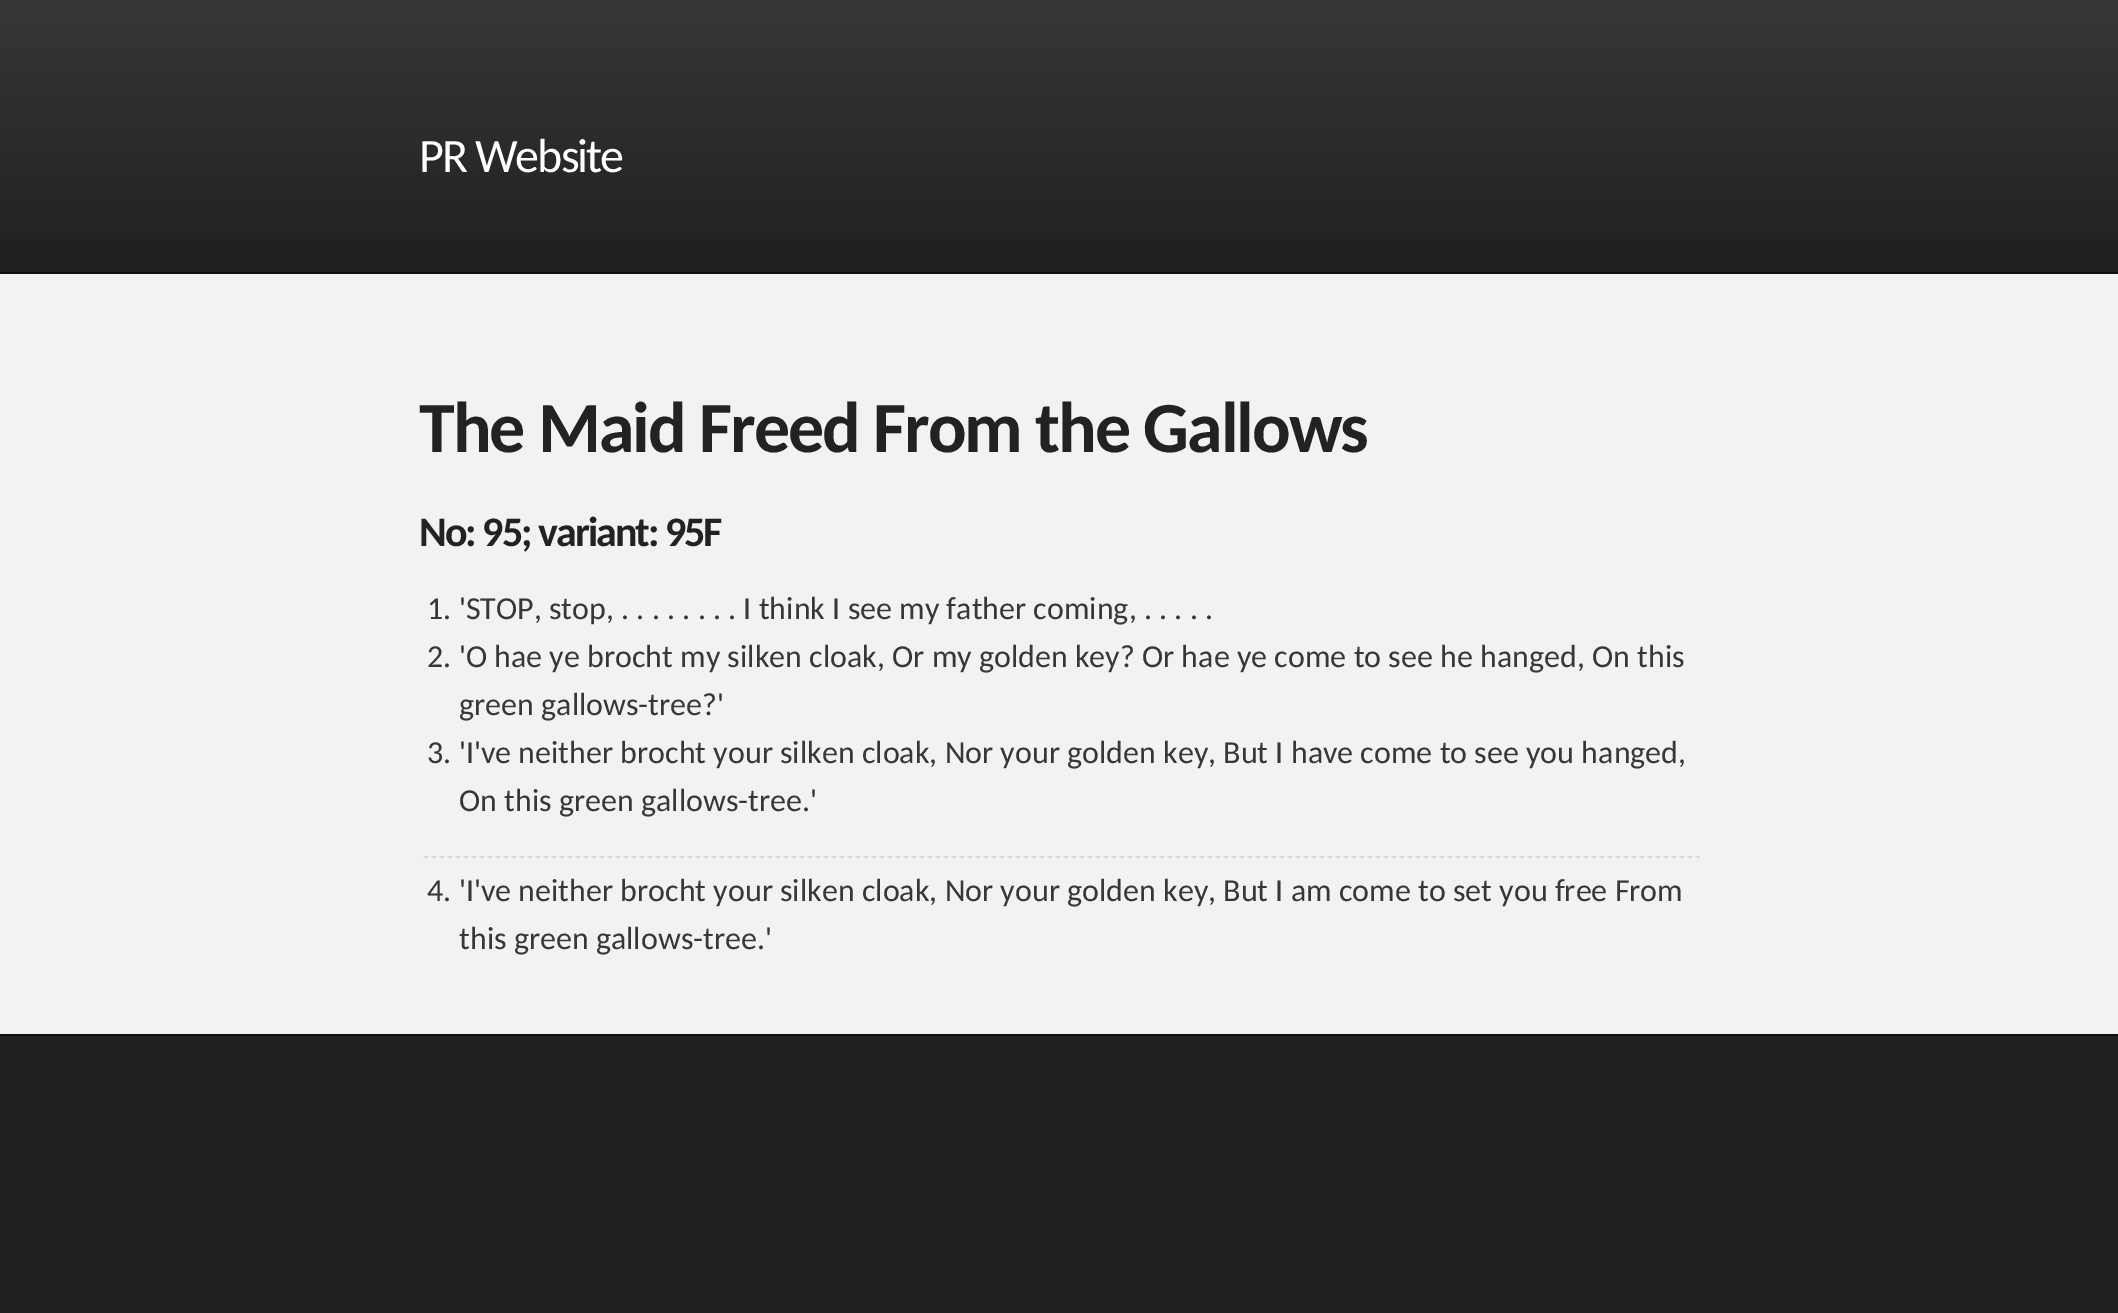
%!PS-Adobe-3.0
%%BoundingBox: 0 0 2118 1313
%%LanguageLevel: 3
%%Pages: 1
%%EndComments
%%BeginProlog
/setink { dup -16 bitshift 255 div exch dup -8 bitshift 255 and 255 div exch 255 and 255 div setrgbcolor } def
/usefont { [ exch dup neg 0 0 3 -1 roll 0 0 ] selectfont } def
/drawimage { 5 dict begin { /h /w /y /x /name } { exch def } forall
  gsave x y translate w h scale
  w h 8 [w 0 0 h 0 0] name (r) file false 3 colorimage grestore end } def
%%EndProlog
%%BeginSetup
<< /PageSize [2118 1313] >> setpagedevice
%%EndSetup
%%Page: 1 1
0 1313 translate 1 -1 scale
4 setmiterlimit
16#212121 setink
0 0 2118 1313 rectfill
gsave 0 0 moveto 2118 0 lineto 2118 241 lineto 0 241 lineto closepath clip newpath
<< /ShadingType 2 /ColorSpace /DeviceRGB /Coords [1059 0 1059 272] /Extend [true true] /Function << /FunctionType 2 /Domain [0 1] /C0 [0.216 0.216 0.216] /C1 [0.129 0.129 0.129] /N 1 >> >> shfill grestore
/Carlito-Regular 48 usefont
16#FFFFFF setink
419 172 moveto -2 0 (PR Website) ashow
[
    [0 274 2118 760 16#F2F2F2]
    [0 272 2118 2 16#111111]
    [0 1034 2118 2 16#111111]
] { aload pop setink rectfill } forall
/Carlito-Bold 72 usefont
16#222222 setink
419 452 moveto -2 0 (The Maid Freed From the Gallows) ashow
/Carlito-Bold 42 usefont
419 546 moveto -2 0 (No: 95; variant: 95F) ashow
/Carlito-Regular 32 usefont
16#373737 setink
[
    [(1. 'STOP, stop, . . . . . . . . I think I see my father coming, . . . . .) 427 619]
    [(2. 'O hae ye brocht my silken cloak, Or my golden key? Or hae ye come to see he hanged, On this) 427 667]
    [(green gallows-tree?') 459 715]
    [(3. 'I've neither brocht your silken cloak, Nor your golden key, But I have come to see you hanged,) 427 763]
    [(On this green gallows-tree.') 459 811]
] { aload pop moveto show } forall
(img1.raw) 420 856 1280 2 drawimage
427 901 moveto (4. 'I've neither brocht your silken cloak, Nor your golden key, But I am come to set you free From) show
459 949 moveto (this green gallows-tree.') show
showpage
%%EOF
